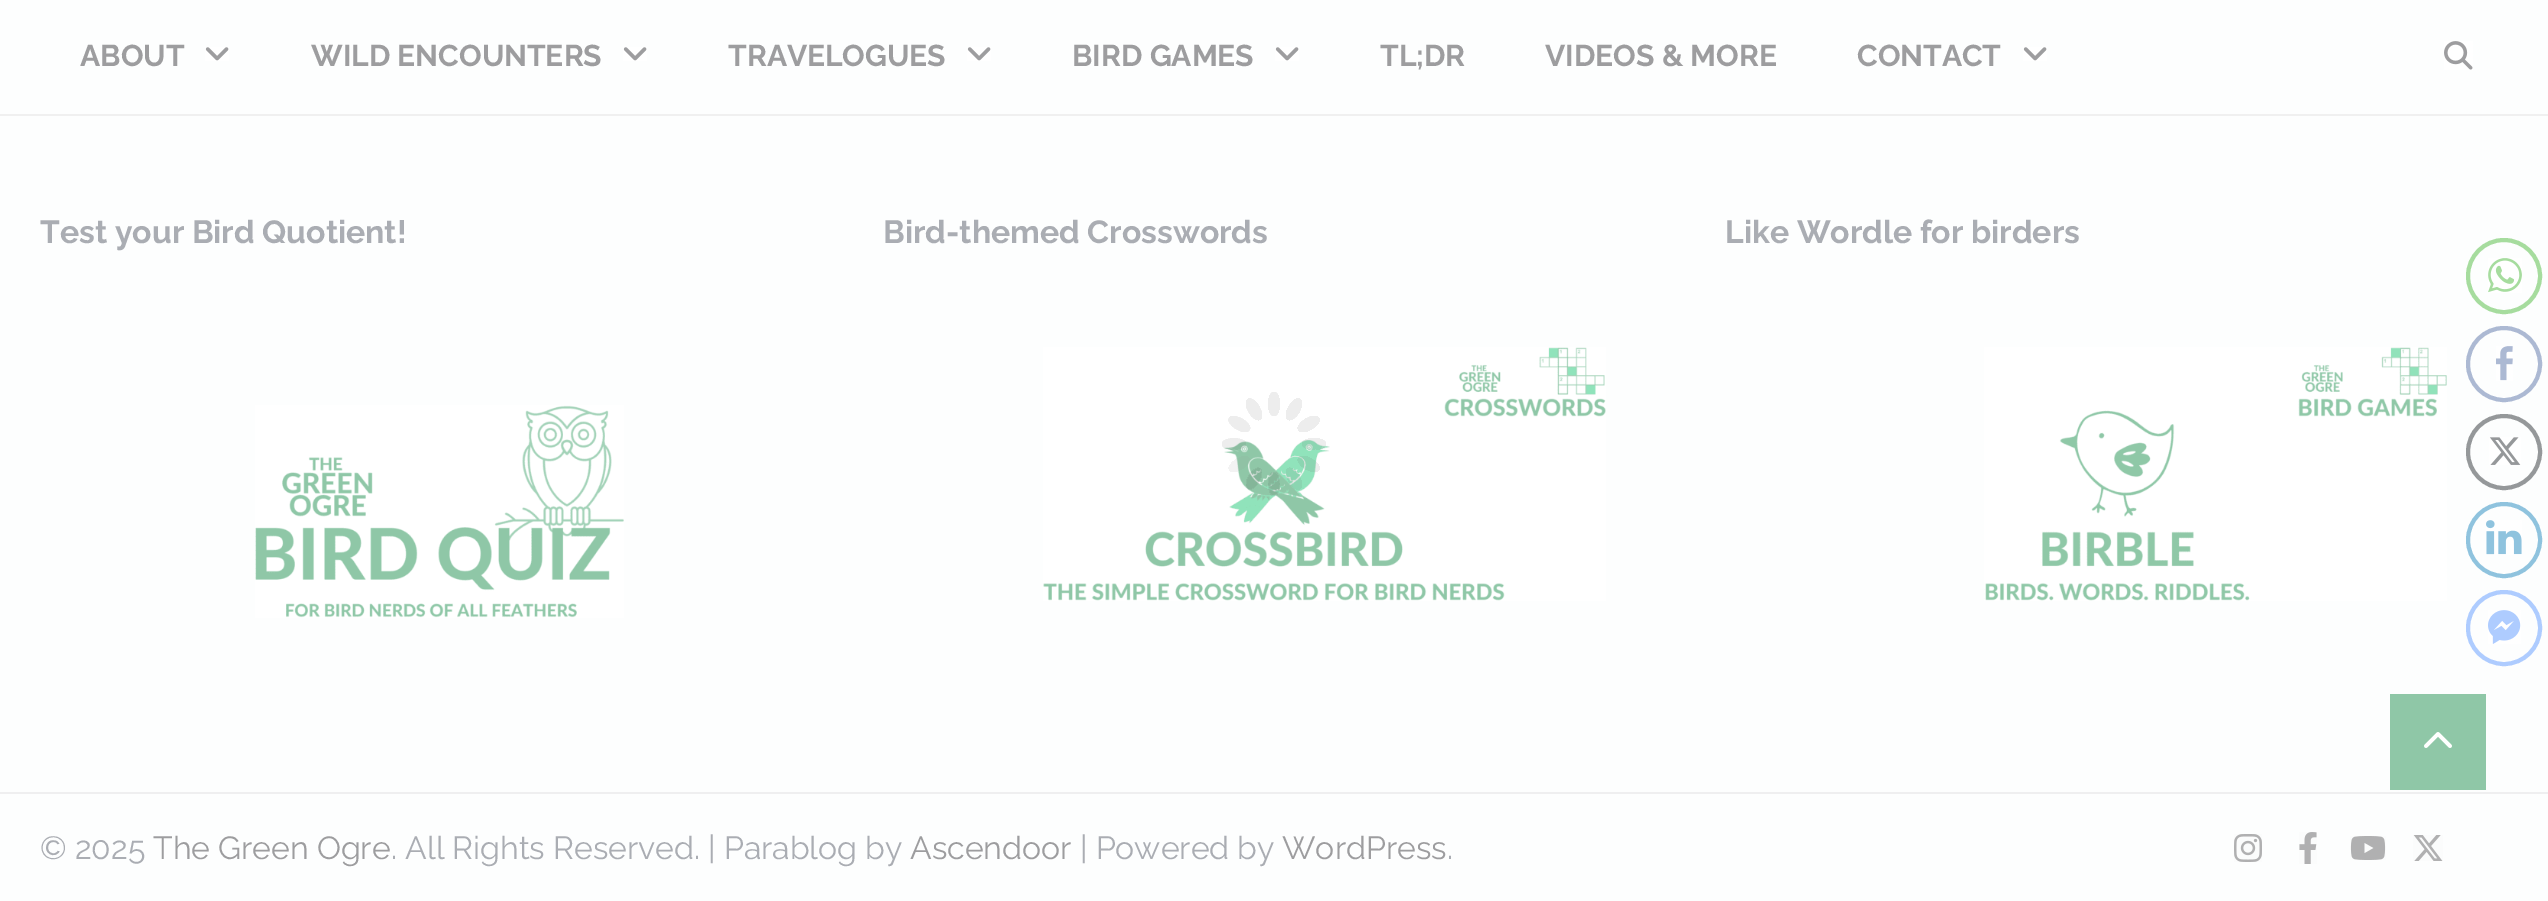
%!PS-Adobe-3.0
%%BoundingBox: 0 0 2548 901
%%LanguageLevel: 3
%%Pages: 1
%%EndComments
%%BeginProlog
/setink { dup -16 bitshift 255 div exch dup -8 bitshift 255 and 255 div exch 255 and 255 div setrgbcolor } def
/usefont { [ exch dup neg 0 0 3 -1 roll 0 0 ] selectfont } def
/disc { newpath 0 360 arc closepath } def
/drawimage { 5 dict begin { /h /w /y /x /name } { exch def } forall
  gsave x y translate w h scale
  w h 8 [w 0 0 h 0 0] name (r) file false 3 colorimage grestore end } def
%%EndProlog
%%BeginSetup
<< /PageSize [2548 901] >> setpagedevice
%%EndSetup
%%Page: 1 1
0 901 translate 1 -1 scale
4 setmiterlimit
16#FDFEFE setink
0 0 2548 901 rectfill
16#F0F0F0 setink
0 114 2548 2 rectfill
/Raleway-Bold 30 usefont
16#9D9D9F setink
80 66 moveto (ABOUT) show
(img1.raw) 205 47 24 14 drawimage
311 66 moveto (WILD ENCOUNTERS) show
(img1.raw) 623 47 24 14 drawimage
728 66 moveto (TRAVELOGUES) show
(img1.raw) 967 47 24 14 drawimage
1072 66 moveto (BIRD GAMES) show
(img1.raw) 1275 47 24 14 drawimage
[
    [(TL;DR) 1380 66]
    [(VIDEOS & MORE) 1545 66]
    [(CONTACT) 1857 66]
] { aload pop moveto show } forall
(img1.raw) 2023 47 24 14 drawimage
(img2.raw) 2444 41 29 29 drawimage
/Raleway-Bold 32 usefont
16#AAADB3 setink
40 243 moveto (Test your Bird Quotient!) show
(img3.raw) 255 405 369 213 drawimage
883 243 moveto (Bird-themed Crosswords) show
(img4.raw) 1043 347 563 254 drawimage
1725 243 moveto (Like Wordle for birders) show
(img5.raw) 1984 347 463 254 drawimage
16#EFEFF0 setink
0 792 2548 2 rectfill
/Raleway-Regular 32 usefont
16#AAADB3 setink
40 859 moveto (© 2025) show
16#9D9D9F setink
153 859 moveto (The Green Ogre) show
16#AAADB3 setink
391 859 moveto (. All Rights Reserved. | Parablog by) show
16#9D9D9F setink
910 859 moveto (Ascendoor) show
16#AAADB3 setink
1080 859 moveto (| Powered by) show
16#9D9D9F setink
1282 859 moveto (WordPress) show
16#AAADB3 setink
1447 859 moveto (.) show
(img6.raw) 2234 834 28 28 drawimage
(img7.raw) 2299 832 18 32 drawimage
(img8.raw) 2350 836 36 24 drawimage
(img9.raw) 2413 835 30 26 drawimage
(img10.raw) 1222 392 104 104 drawimage
16#8FC7A7 setink
2390 694 96 96 rectfill
(img11.raw) 2424 732 28 16 drawimage
16#A6DC9E setink
4 setlinewidth
2504 276 36 disc stroke
(img12.raw) 2488 258 34 35 drawimage
16#ACB9D3 setink
2504 364 36 disc stroke
(img13.raw) 2496 346 17 35 drawimage
16#95989A setink
2504 452 36 disc stroke
(img14.raw) 2489 437 32 28 drawimage
16#8FC3DE setink
2504 540 36 disc stroke
(img15.raw) 2486 520 36 35 drawimage
16#AECCFF setink
2504 628 36 disc stroke
(img16.raw) 2488 610 33 34 drawimage
showpage
%%EOF
